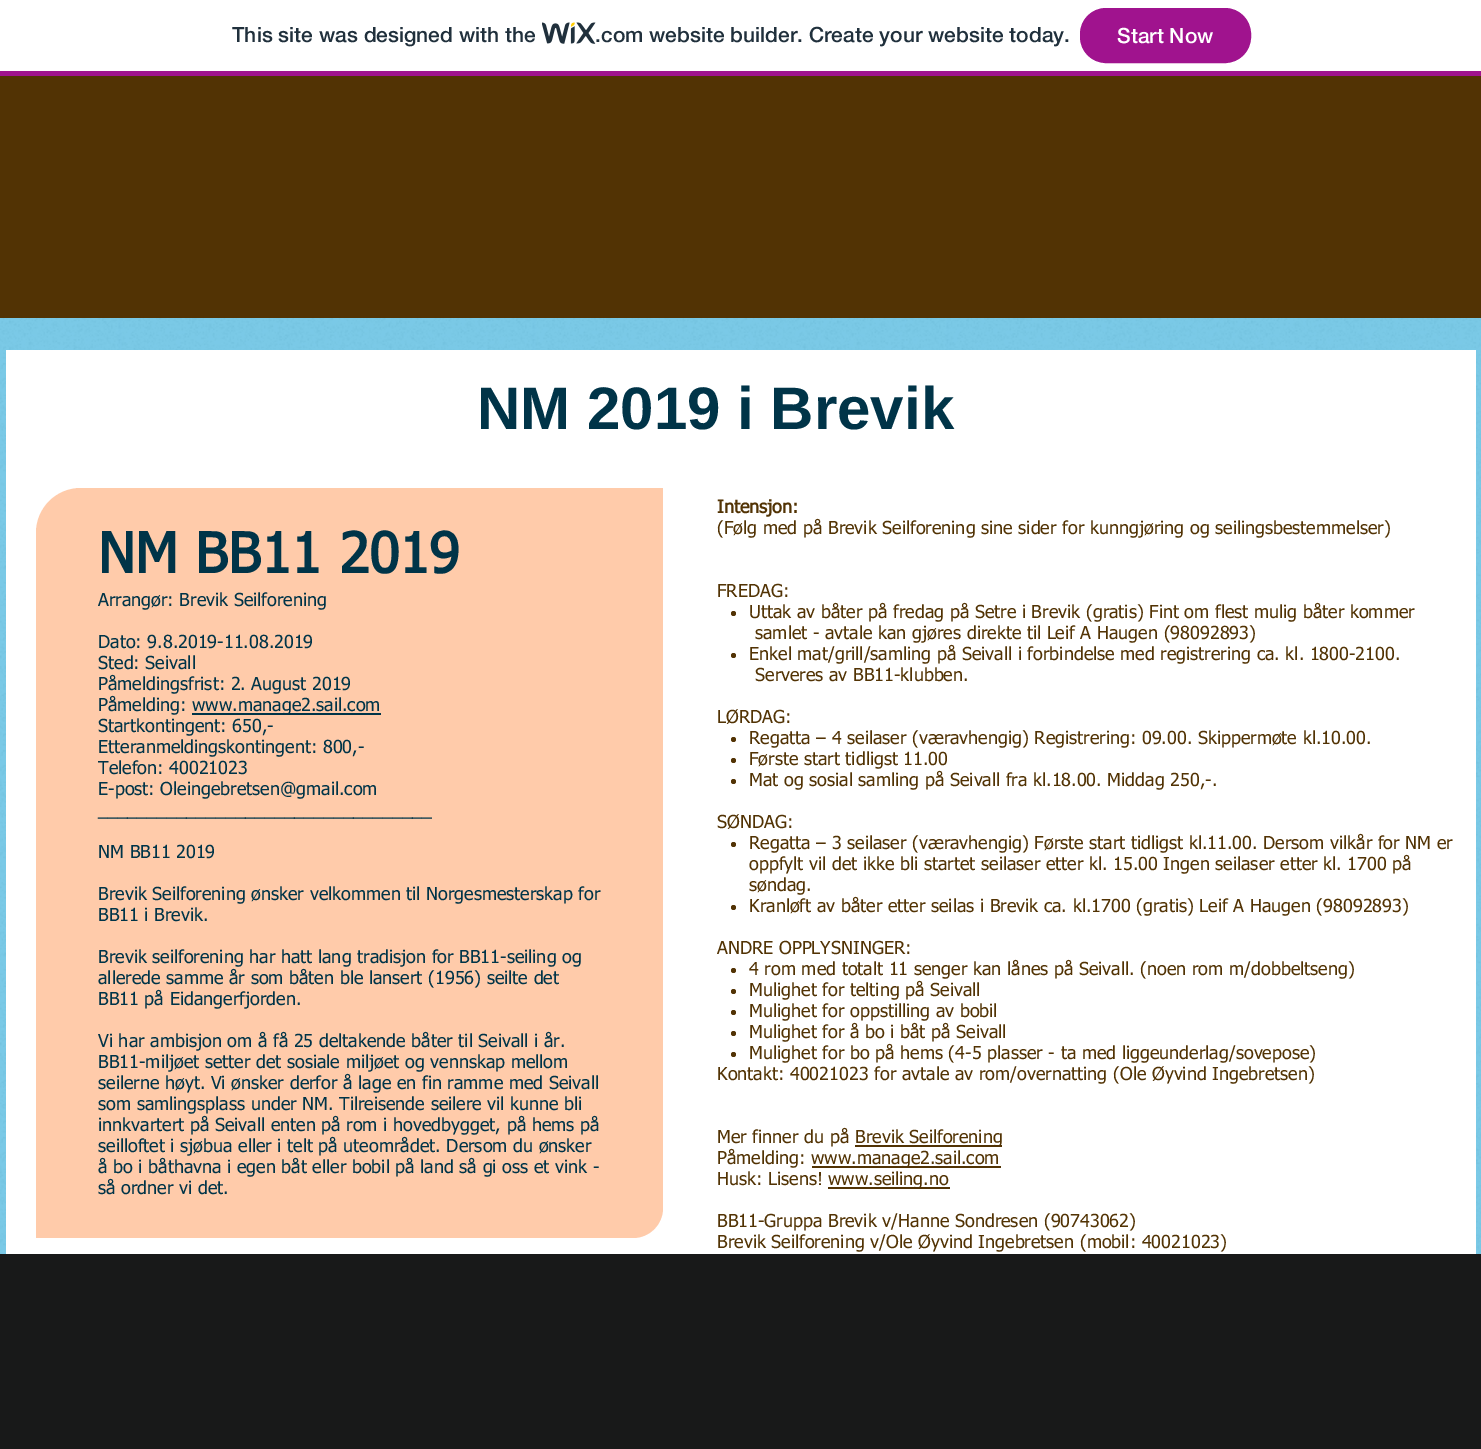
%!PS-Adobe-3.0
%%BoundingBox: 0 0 1481 1449
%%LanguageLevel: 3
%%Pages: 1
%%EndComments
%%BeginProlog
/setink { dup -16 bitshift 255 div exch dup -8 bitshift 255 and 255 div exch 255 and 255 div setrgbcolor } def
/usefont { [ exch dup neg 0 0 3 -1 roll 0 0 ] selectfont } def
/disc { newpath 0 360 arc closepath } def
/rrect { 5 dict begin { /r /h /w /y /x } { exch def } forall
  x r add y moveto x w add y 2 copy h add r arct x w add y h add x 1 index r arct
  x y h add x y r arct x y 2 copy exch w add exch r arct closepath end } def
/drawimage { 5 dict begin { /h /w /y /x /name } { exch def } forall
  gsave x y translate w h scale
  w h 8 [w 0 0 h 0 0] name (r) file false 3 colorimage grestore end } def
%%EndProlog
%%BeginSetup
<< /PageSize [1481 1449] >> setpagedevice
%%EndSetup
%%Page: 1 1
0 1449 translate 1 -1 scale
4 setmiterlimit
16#FFFFFF setink
0 0 1481 1449 rectfill
16#A0138E setink
0 71 1481 5 rectfill
/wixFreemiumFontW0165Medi-Medium 21 usefont
16#20303C setink
232 42 moveto (This site was designed with the) show
(img1.raw) 542 22 54 22 drawimage
595 42 moveto (.com website builder. Create your website today.) show
16#A0138E setink
1081 9 169 53 25 rrect gsave fill grestore
2 setlinewidth
stroke
16#FFFFFF setink
1117 43 moveto (Start Now) show
16#72C6E5 setink
0 318 1481 936 rectfill
(img2.raw) 0 318 1481 936 drawimage
16#523304 setink
0 76 1481 242 rectfill
16#FFFFFF setink
6 350 1470 904 rectfill
/LiberationSans-Bold 60 usefont
16#003448 setink
477 429 moveto (NM 2019 i Brevik) show
16#FFCBAA setink
81 488 moveto 663 488 lineto 663 1208 lineto 663 1224.5 649.5 1238 633 1238 curveto 36 1238 lineto 36 533 lineto 36 508 56 488 81 488 curveto closepath fill
/tahoma-Bold 55.5 usefont
16#003448 setink
98 573 moveto (NM BB11 2019) show
/tahoma-Regular 18 usefont
[
    [(Arrangør: Brevik Seilforening) 98 606]
    [(Dato: 9.8.2019-11.08.2019) 98 648]
    [(Sted: Seivall) 98 669]
    [(Påmeldingsfrist: 2. August 2019) 98 690]
    [(Påmelding:) 98 711]
] { aload pop moveto show } forall
192 713 189 2 rectfill
[
    [(www.manage2.sail.com) 192 711]
    [(Startkontingent: 650,-) 98 732]
    [(Etteranmeldingskontingent: 800,-) 98 753]
    [(Telefon: 40021023) 98 774]
    [(E-post: Oleingebretsen@gmail.com) 98 795]
    [(__________________________________) 98 816]
    [(NM BB11 2019) 98 858]
    [(Brevik Seilforening ønsker velkommen til Norgesmesterskap for) 98 900]
    [(BB11 i Brevik.) 98 921]
    [(Brevik seilforening har hatt lang tradisjon for BB11-seiling og) 98 963]
    [(allerede samme år som båten ble lansert \(1956\) seilte det) 98 984]
    [(BB11 på Eidangerfjorden.) 98 1005]
    [(Vi har ambisjon om å få 25 deltakende båter til Seivall i år.) 98 1047]
    [(BB11-miljøet setter det sosiale miljøet og vennskap mellom) 98 1068]
    [(seilerne høyt. Vi ønsker derfor å lage en fin ramme med Seivall) 98 1089]
    [(som samlingsplass under NM. Tilreisende seilere vil kunne bli) 98 1110]
    [(innkvartert på Seivall enten på rom i hovedbygget, på hems på) 98 1131]
    [(seilloftet i sjøbua eller i telt på uteområdet. Dersom du ønsker) 98 1152]
    [(å bo i båthavna i egen båt eller bobil på land så gi oss et vink -) 98 1173]
    [(så ordner vi det.) 98 1194]
] { aload pop moveto show } forall
/tahoma-Bold 18 usefont
16#523304 setink
717 513 moveto (Intensjon:) show
/tahoma-Regular 18 usefont
717 534 moveto (\(Følg med på Brevik Seilforening sine sider for kunngjøring og seilingsbestemmelser\)) show
717 597 moveto (FREDAG:) show
733.5 613.5 2.5 disc fill
749 618 moveto (Uttak av båter på fredag på Setre i Brevik \(gratis\) Fint om flest mulig båter kommer) show
755 639 moveto (samlet - avtale kan gjøres direkte til Leif A Haugen \(98092893\)) show
733.5 655.5 2.5 disc fill
[
    [(Enkel mat/grill/samling på Seivall i forbindelse med registrering ca. kl. 1800-2100.) 749 660]
    [(Serveres av BB11-klubben.) 755 681]
    [(LØRDAG:) 717 723]
] { aload pop moveto show } forall
733.5 739.5 2.5 disc fill
749 744 moveto (Regatta – 4 seilaser \(væravhengig\) Registrering: 09.00. Skippermøte kl.10.00.) show
733.5 760.5 2.5 disc fill
749 765 moveto (Første start tidligst 11.00) show
733.5 781.5 2.5 disc fill
749 786 moveto (Mat og sosial samling på Seivall fra kl.18.00. Middag 250,-.) show
717 828 moveto (SØNDAG:) show
733.5 844.5 2.5 disc fill
[
    [(Regatta – 3 seilaser \(væravhengig\) Første start tidligst kl.11.00. Dersom vilkår for NM er) 749 849]
    [(oppfylt vil det ikke bli startet seilaser etter kl. 15.00 Ingen seilaser etter kl. 1700 på) 749 870]
    [(søndag.) 749 891]
] { aload pop moveto show } forall
733.5 907.5 2.5 disc fill
749 912 moveto (Kranløft av båter etter seilas i Brevik ca. kl.1700 \(gratis\) Leif A Haugen \(98092893\)) show
717 954 moveto (ANDRE OPPLYSNINGER:) show
733.5 970.5 2.5 disc fill
749 975 moveto (4 rom med totalt 11 senger kan lånes på Seivall. \(noen rom m/dobbeltseng\)) show
733.5 991.5 2.5 disc fill
749 996 moveto (Mulighet for telting på Seivall) show
733.5 1012.5 2.5 disc fill
749 1017 moveto (Mulighet for oppstilling av bobil) show
733.5 1033.5 2.5 disc fill
749 1038 moveto (Mulighet for å bo i båt på Seivall) show
733.5 1054.5 2.5 disc fill
[
    [(Mulighet for bo på hems \(4-5 plasser - ta med liggeunderlag/sovepose\)) 749 1059]
    [(Kontakt: 40021023 for avtale av rom/overnatting \(Ole Øyvind Ingebretsen\)) 717 1080]
    [(Mer finner du på) 717 1143]
] { aload pop moveto show } forall
855 1145 147 2 rectfill
855 1143 moveto (Brevik Seilforening) show
717 1164 moveto (Påmelding:) show
812 1166 189 2 rectfill
811 1164 moveto (www.manage2.sail.com) show
717 1185 moveto (Husk: Lisens!) show
828 1187 122 2 rectfill
[
    [(www.seiling.no) 828 1185]
    [(BB11-Gruppa Brevik v/Hanne Sondresen \(90743062\)) 717 1227]
    [(Brevik Seilforening v/Ole Øyvind Ingebretsen \(mobil: 40021023\)) 717 1248]
] { aload pop moveto show } forall
16#181919 setink
0 1254 1481 195 rectfill
showpage
%%EOF
